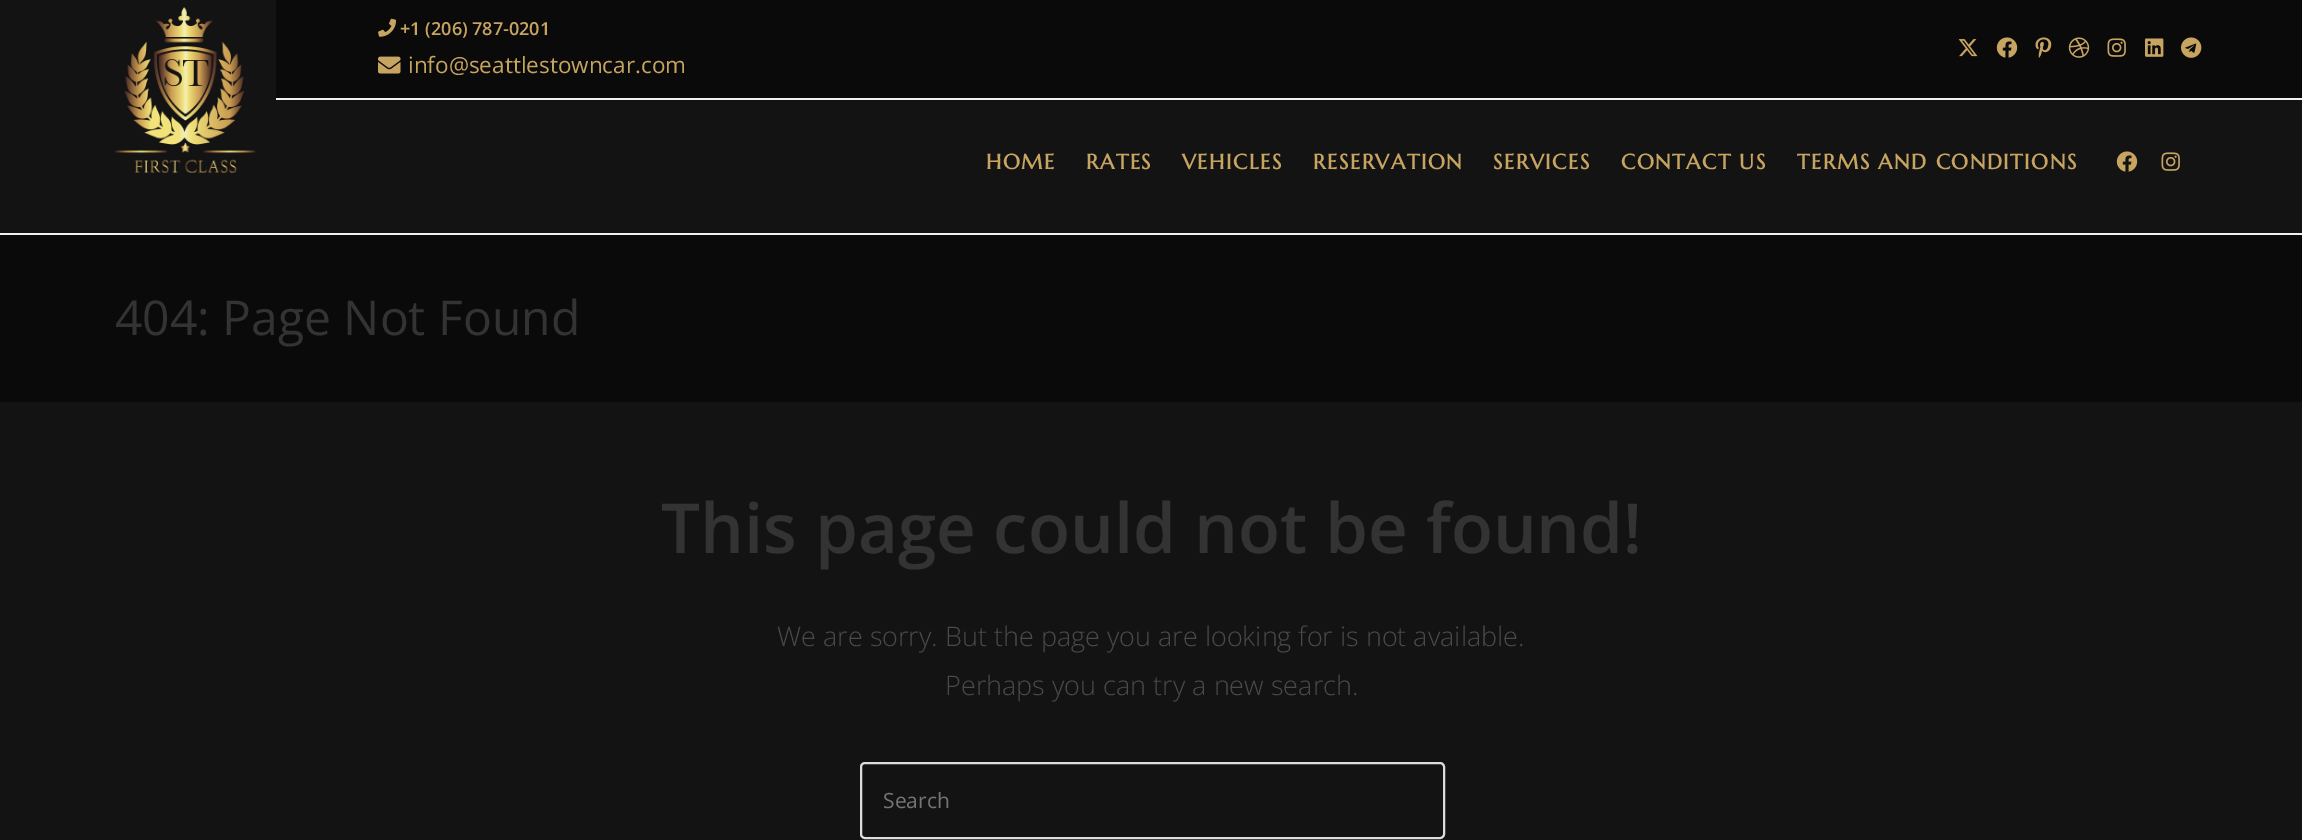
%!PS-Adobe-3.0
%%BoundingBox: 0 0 2302 840
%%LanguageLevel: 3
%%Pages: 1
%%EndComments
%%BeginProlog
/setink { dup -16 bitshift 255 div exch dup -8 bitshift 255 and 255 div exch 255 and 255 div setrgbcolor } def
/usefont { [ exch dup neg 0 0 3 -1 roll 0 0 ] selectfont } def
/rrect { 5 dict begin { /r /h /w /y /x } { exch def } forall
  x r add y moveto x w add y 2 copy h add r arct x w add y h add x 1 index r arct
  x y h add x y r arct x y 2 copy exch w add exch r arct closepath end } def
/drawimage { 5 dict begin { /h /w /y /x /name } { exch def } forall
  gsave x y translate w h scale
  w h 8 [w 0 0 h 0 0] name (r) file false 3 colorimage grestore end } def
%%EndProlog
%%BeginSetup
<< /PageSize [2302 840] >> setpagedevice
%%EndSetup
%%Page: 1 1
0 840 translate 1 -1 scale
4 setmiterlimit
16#131313 setink
0 0 2302 840 rectfill
16#0A0A0A setink
276 0 2026 98 rectfill
16#F1F1F1 setink
276 98 2026 2 rectfill
(img1.raw) 378 18 18 19 drawimage
/OpenSans-SemiBold 18 usefont
16#C8A461 setink
400 35 moveto (+1 \(206\) 787-0201) show
(img2.raw) 378 56 23 18 drawimage
/OpenSans-Regular 22.5 usefont
408 73 moveto (info@seattlestowncar.com) show
(img3.raw) 1958 39 20 18 drawimage
(img4.raw) 1996 37 22 21 drawimage
(img5.raw) 2035 37 17 21 drawimage
(img6.raw) 2068 37 22 21 drawimage
(img7.raw) 2107 38 19 19 drawimage
(img8.raw) 2145 38 19 19 drawimage
(img9.raw) 2181 37 21 21 drawimage
16#F1F1F1 setink
0 233 2302 2 rectfill
(img10.raw) 115 7 140 166 drawimage
/MarcellusSC-Bold 21 usefont
16#C8A461 setink
986 169 moveto 1.5 0 (HOME) ashow
1086 169 moveto 1.5 0 (RATES) ashow
1182 169 moveto 1.5 0 (VEHICLES) ashow
1313 169 moveto 1.5 0 (RESERVATION) ashow
1493 169 moveto 1.5 0 (SERVICES) ashow
1621 169 moveto 1.5 0 (CONTACT US) ashow
1797 169 moveto 1.5 0 (TERMS AND CONDITIONS) ashow
(img11.raw) 2116 151 22 21 drawimage
(img12.raw) 2161 152 19 19 drawimage
16#0A0A0A setink
0 235 2302 167 rectfill
/OpenSans-Regular 48 usefont
16#333333 setink
115 335 moveto (404: Page Not Found) show
/OpenSans-SemiBold 69 usefont
661 553 moveto (This page could not be found!) show
/OpenSans-Light 27 usefont
16#4A4A4A setink
777 646 moveto (We are sorry. But the page you are looking for is not available.) show
945 695 moveto (Perhaps you can try a new search.) show
16#DDDDDD setink
2 setlinewidth
861 763 583 75 4 rrect stroke
/OpenSans-Regular 21 usefont
16#757575 setink
883 808 moveto (Search) show
showpage
%%EOF
